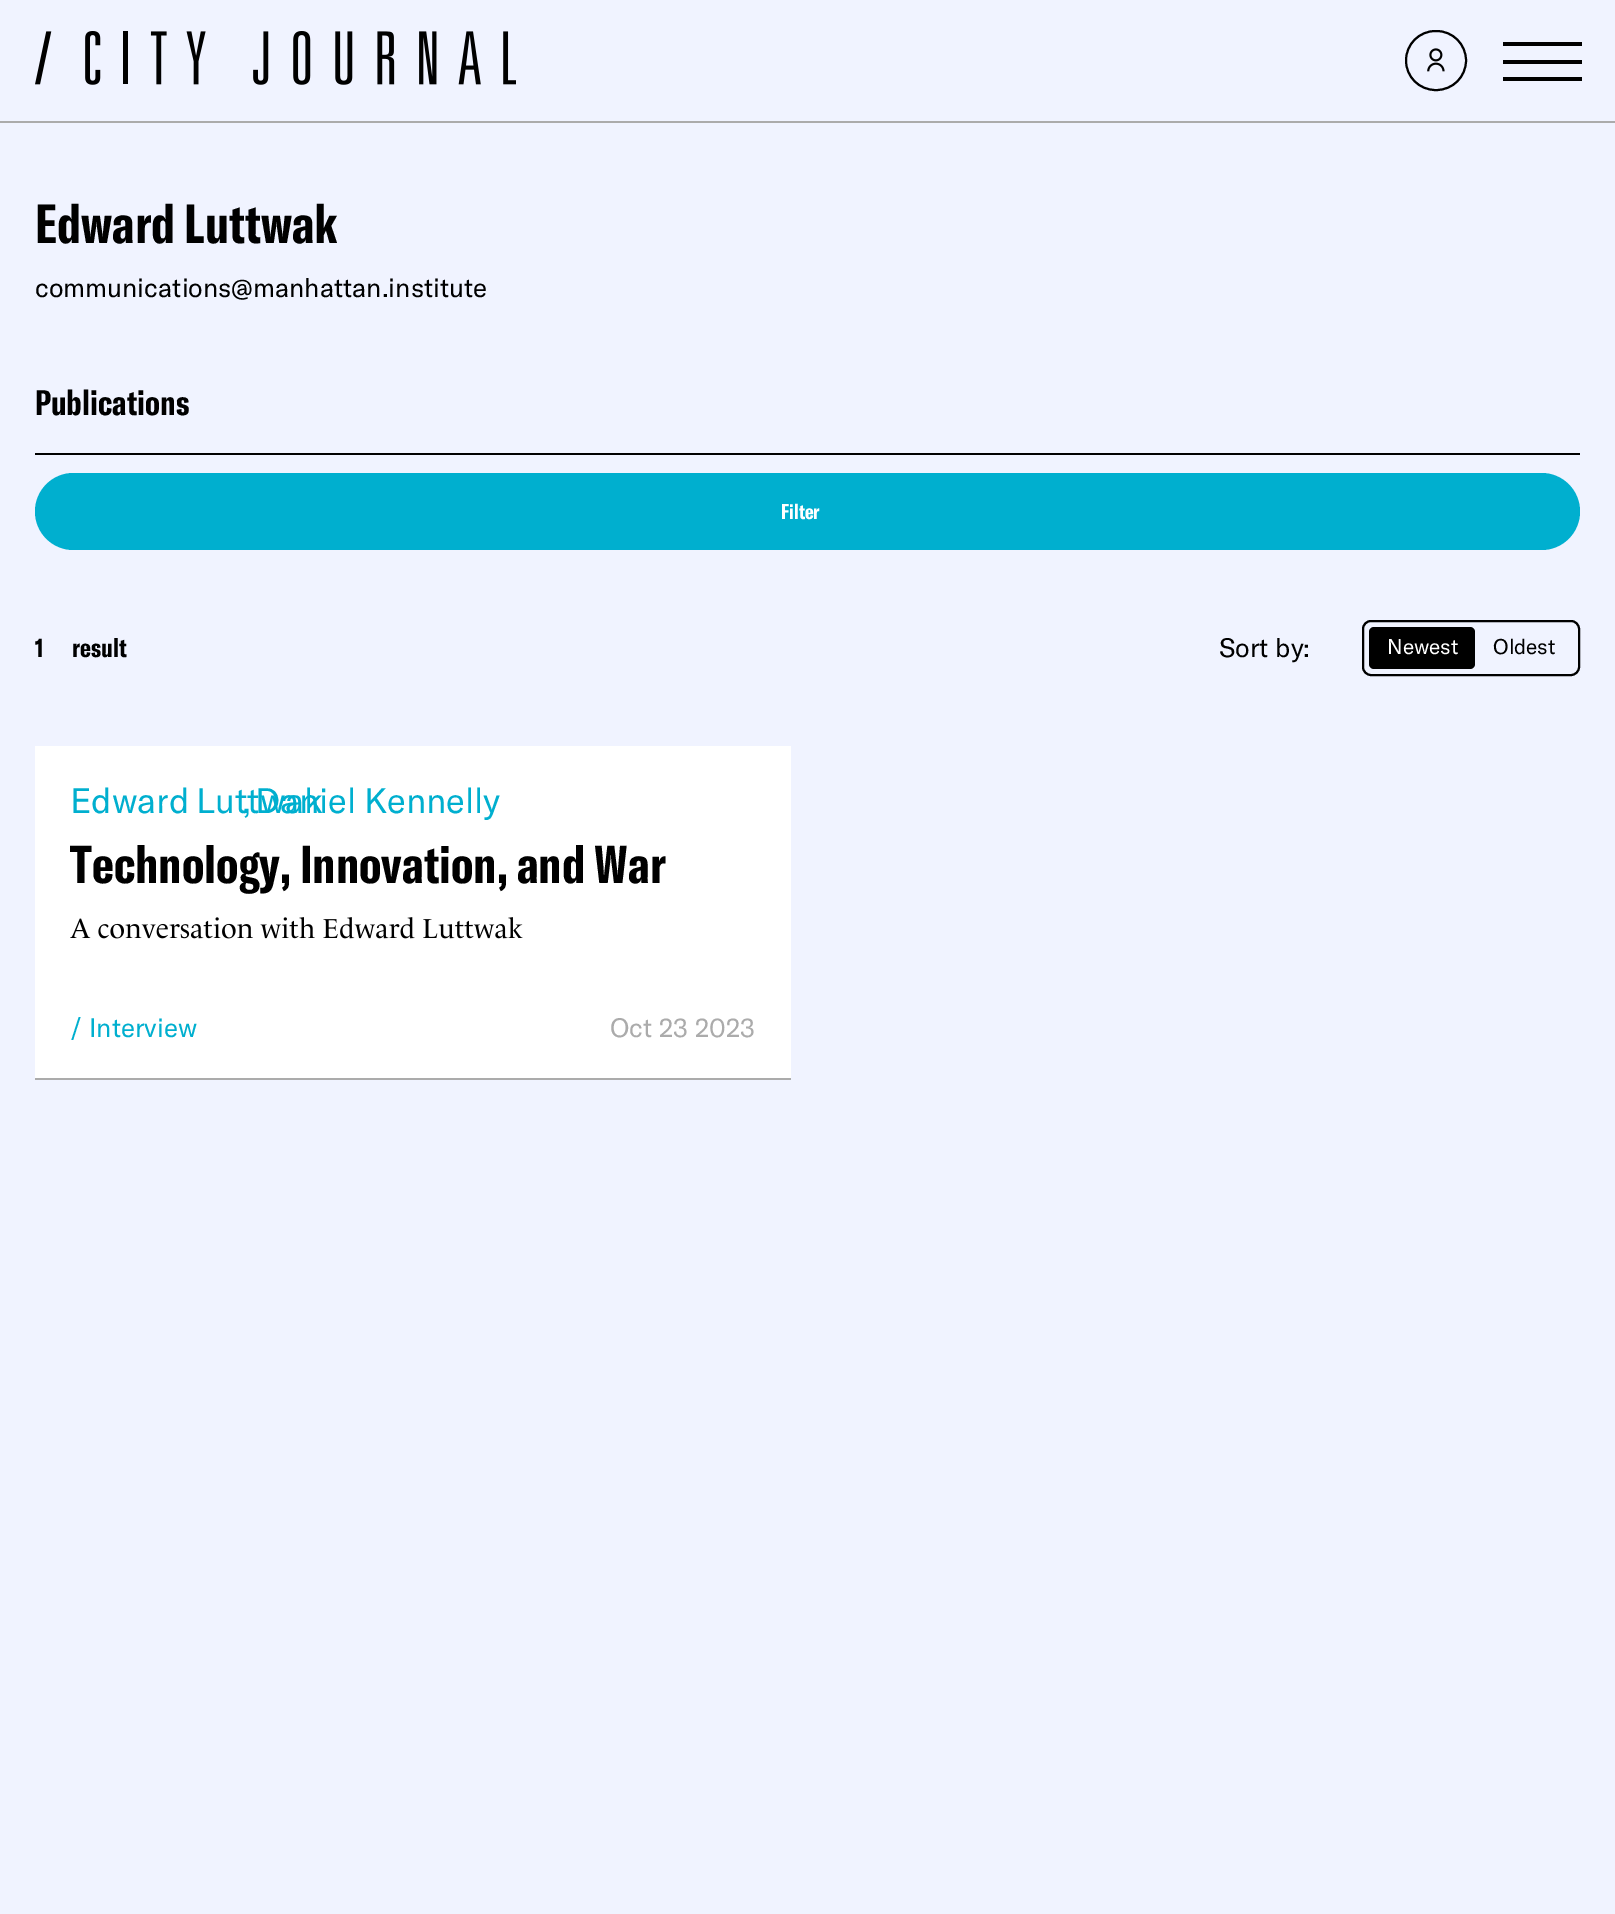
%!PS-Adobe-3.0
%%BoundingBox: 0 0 1615 1914
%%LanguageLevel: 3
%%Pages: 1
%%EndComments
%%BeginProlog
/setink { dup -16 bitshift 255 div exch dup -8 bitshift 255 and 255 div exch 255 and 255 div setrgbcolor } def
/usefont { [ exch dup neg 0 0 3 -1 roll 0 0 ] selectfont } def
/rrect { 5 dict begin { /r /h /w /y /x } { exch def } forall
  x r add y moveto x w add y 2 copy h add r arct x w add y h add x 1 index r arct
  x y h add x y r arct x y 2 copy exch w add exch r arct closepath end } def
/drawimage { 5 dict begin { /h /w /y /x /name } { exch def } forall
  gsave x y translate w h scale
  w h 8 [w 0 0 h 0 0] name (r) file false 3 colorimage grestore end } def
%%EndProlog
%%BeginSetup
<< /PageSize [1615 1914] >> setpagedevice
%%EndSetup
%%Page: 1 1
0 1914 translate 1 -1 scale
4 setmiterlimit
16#F0F3FF setink
0 0 1615 1914 rectfill
16#ABABAB setink
0 121 1615 2 rectfill
(img1.raw) 35 31 481 54 drawimage
16#000000 setink
2 setlinewidth
1406 31 60 59 29.5 rrect stroke
(img2.raw) 1427 48 18 24 drawimage
[
    [1503 42 79 4 16#000000]
    [1503 60 79 4 16#000000]
    [1503 77 79 4 16#000000]
] { aload pop setink rectfill } forall
/GTAmerica-Bold 54.25 usefont
35 243 moveto (Edward Luttwak) show
/GTAmerica-Regular 26.25 usefont
35 297 moveto (communications@manhattan.institute) show
35 453 1545 2 rectfill
/GTAmerica-Bold 35 usefont
35 415 moveto (Publications) show
16#00AFCF setink
35 473 1545 77 38.5 rrect fill
/GTAmerica-Bold 21 usefont
16#FFFFFF setink
781 519 moveto (Filter) show
/GTAmerica-Bold 26.25 usefont
16#000000 setink
35 657 moveto 24 0 32 (1 result) widthshow
/GTAmerica-Regular 26.25 usefont
1219 657 moveto (Sort by:) show
1363 621 216 54 8 rrect stroke
1369 627 106 42 5 rrect fill
/GTAmerica-Regular 21 usefont
16#FFFFFF setink
1387 654 moveto (Newest) show
16#000000 setink
1493 654 moveto (Oldest) show
16#FFFFFF setink
35 746 756 332 rectfill
16#ABABAB setink
35 1078 756 2 rectfill
/GTAmerica-Regular 35 usefont
16#00AFCF setink
70 813 moveto -2 0 32 (Edward Luttwak) widthshow
255 813 moveto -2 0 32 (Daniel Kennelly) widthshow
242 813 moveto (,) show
/GTAmerica-Bold 52.5 usefont
16#000000 setink
70 883 moveto (Technology, Innovation, and War) show
(img3.raw) 70 917 453 22 drawimage
/GTAmerica-Regular 26.25 usefont
16#00AFCF setink
70 1037 moveto (/ Interview) show
16#ABABAB setink
610 1037 moveto (Oct 23 2023) show
showpage
%%EOF
